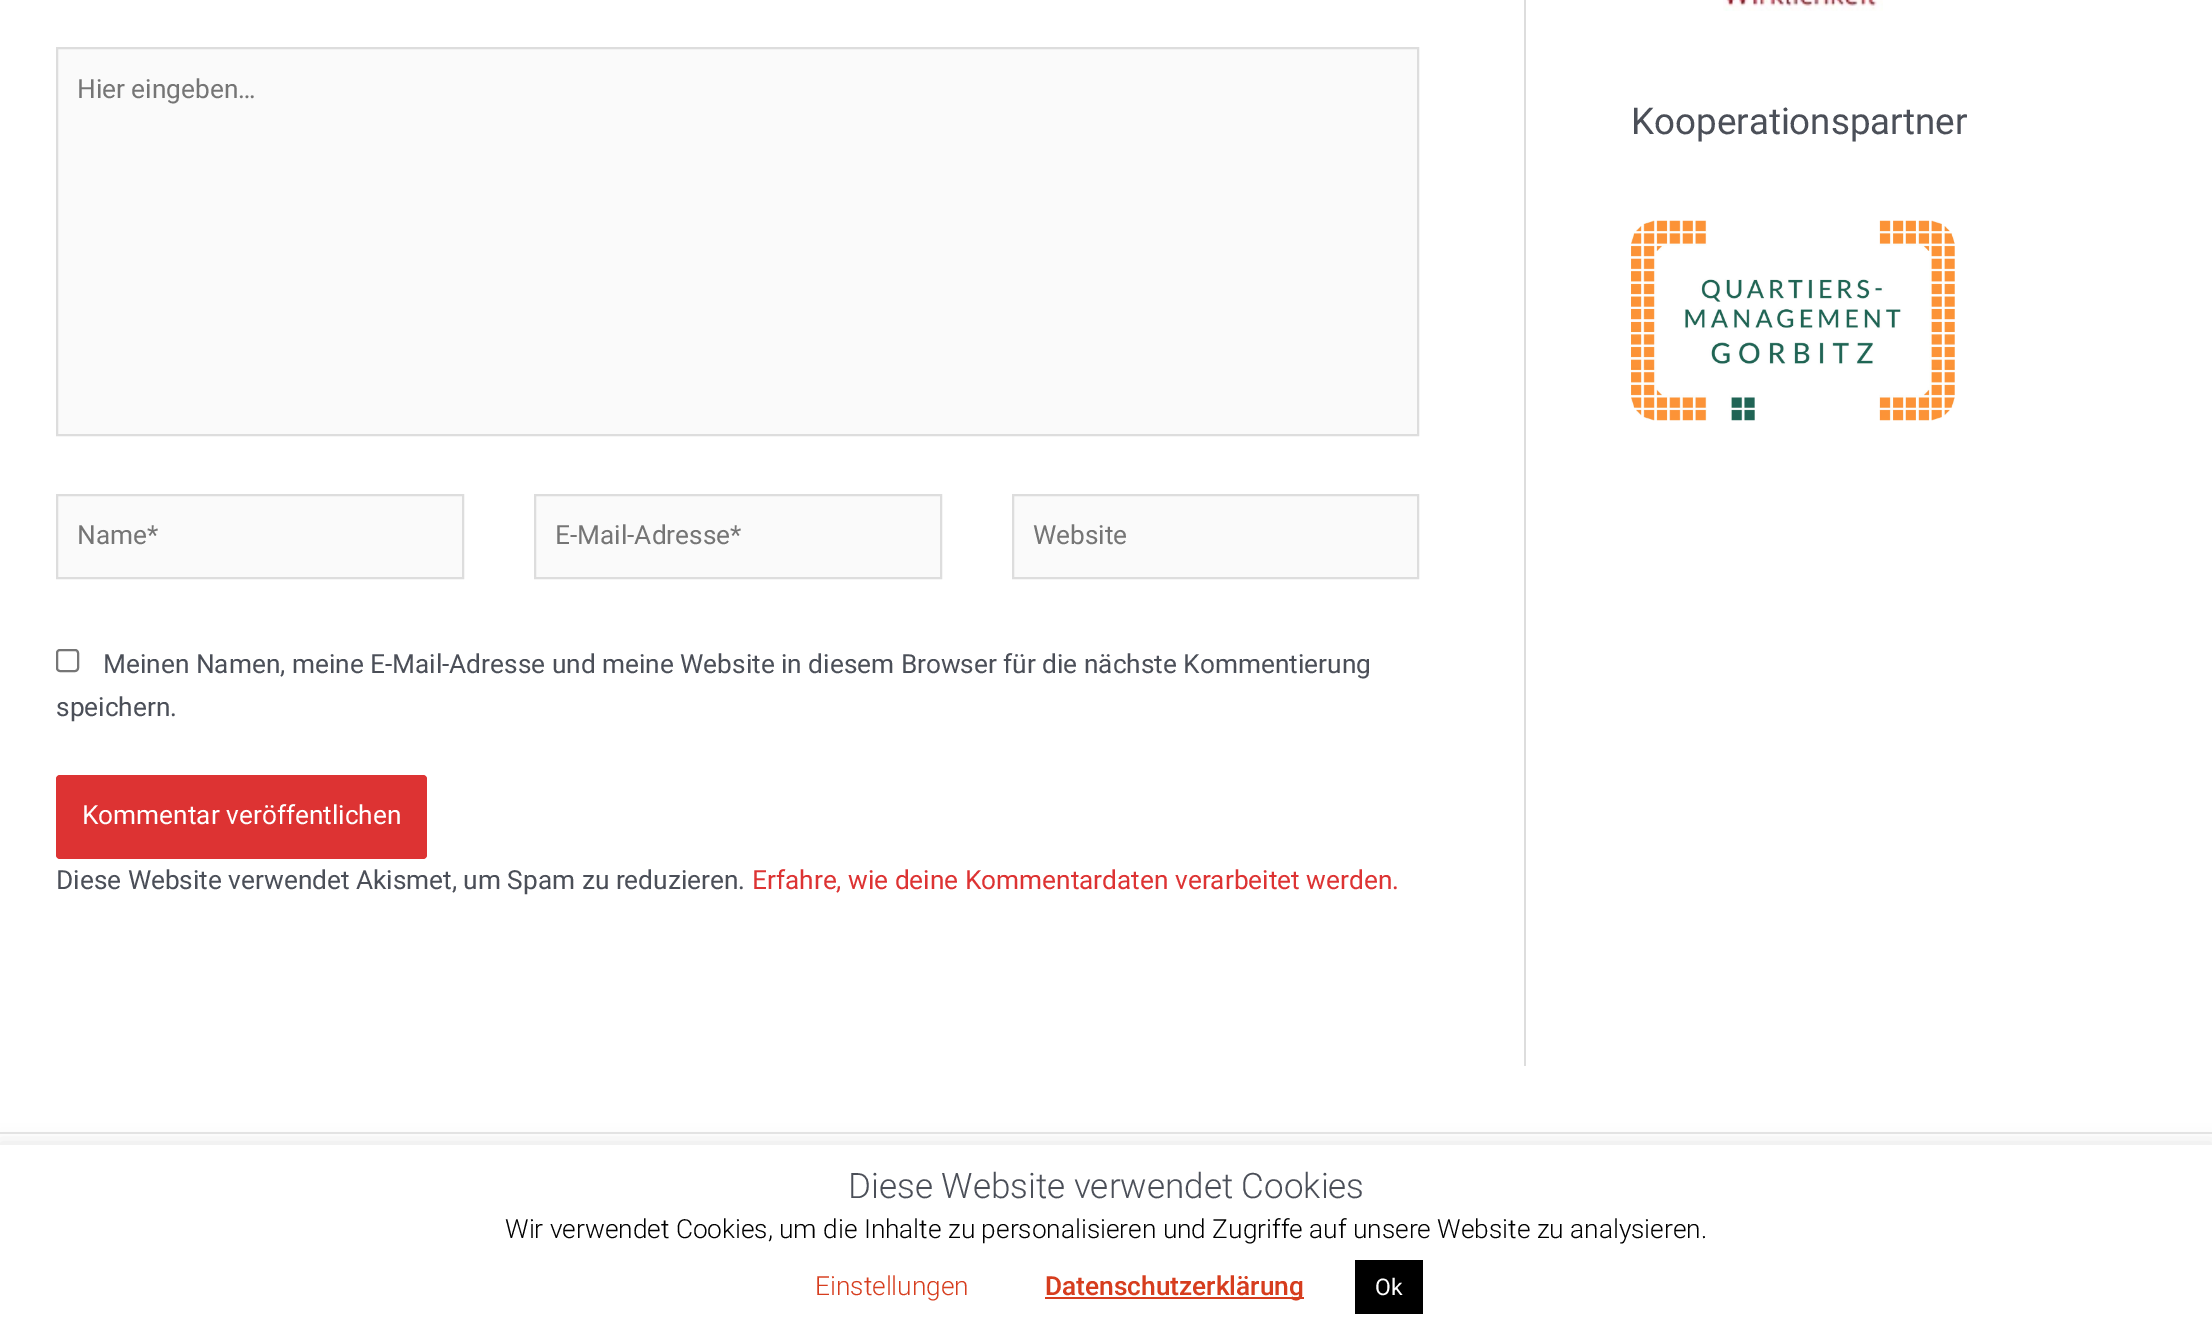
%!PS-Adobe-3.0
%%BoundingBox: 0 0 2212 1344
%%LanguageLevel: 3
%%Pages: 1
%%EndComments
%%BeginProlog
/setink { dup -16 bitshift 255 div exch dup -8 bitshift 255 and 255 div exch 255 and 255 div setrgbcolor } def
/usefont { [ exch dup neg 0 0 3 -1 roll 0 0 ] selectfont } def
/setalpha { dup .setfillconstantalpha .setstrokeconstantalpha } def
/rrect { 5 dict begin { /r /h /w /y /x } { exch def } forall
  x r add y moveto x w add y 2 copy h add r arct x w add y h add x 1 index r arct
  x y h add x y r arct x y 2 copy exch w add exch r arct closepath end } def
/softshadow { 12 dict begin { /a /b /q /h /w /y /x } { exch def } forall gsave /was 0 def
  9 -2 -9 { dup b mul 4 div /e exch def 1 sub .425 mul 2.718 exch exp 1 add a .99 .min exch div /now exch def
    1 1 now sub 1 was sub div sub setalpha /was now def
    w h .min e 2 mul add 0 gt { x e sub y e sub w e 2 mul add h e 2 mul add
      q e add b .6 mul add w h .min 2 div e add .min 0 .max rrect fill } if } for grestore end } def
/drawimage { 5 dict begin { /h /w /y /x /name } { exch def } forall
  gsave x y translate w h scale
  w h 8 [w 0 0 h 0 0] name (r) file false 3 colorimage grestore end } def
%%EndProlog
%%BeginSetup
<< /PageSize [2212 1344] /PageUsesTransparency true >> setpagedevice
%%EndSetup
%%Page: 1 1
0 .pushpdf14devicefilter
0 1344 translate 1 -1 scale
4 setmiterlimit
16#FFFFFF setink
0 0 2212 1344 rectfill
16#FAFAFA setink
57 48 moveto 1418 48 lineto 1418 435 lineto 57 435 lineto closepath gsave fill grestore
16#DDDDDD setink
2 setlinewidth
stroke
/Roboto-Regular 26.25 usefont
16#757575 setink
77 98 moveto (Hier eingeben…) show
16#FAFAFA setink
57 495 moveto 463 495 lineto 463 578 lineto 57 578 lineto closepath gsave fill grestore
16#DDDDDD setink
stroke
16#757575 setink
77 544 moveto (Name*) show
16#FAFAFA setink
535 495 moveto 941 495 lineto 941 578 lineto 535 578 lineto closepath gsave fill grestore
16#DDDDDD setink
stroke
16#757575 setink
555 544 moveto (E-Mail-Adresse*) show
16#FAFAFA setink
1013 495 moveto 1418 495 lineto 1418 578 lineto 1013 578 lineto closepath gsave fill grestore
16#DDDDDD setink
stroke
16#757575 setink
1033 544 moveto (Website) show
16#767676 setink
57 650 21 21 3 rrect stroke
16#4B4F58 setink
103 673 moveto (Meinen Namen, meine E-Mail-Adresse und meine Website in diesem Browser für die nächste Kommentierung) show
56 716 moveto (speichern.) show
16#DD3333 setink
56 775 371 84 4 rrect fill
16#FFFFFF setink
82 824 moveto (Kommentar veröffentlichen) show
16#4B4F58 setink
56 889 moveto (Diese Website verwendet Akismet, um Spam zu reduzieren.) show
16#DD3333 setink
752 889 moveto (Erfahre, wie deine Kommentardaten verarbeitet werden.) show
16#DDDDDD setink
1524 0 2 1066 rectfill
(img1.raw) 1723 0 160 11 drawimage
/Roboto-Regular 36.75 usefont
16#4B4F58 setink
1631 134 moveto (Kooperationspartner) show
(img2.raw) 1631 220 324 201 drawimage
16#E5E5E5 setink
0 1132 2212 2 rectfill
16#ACABAB setink
0 1143 2212 199 0 9 0.3 softshadow
16#FFFFFF setink
0 1145 2212 199 rectfill
/Roboto-Light 35 usefont
16#4B4F58 setink
848 1198 moveto (Diese Website verwendet Cookies) show
/Roboto-Light 26.25 usefont
16#000000 setink
505 1238 moveto (Wir verwendet Cookies, um die Inhalte zu personalisieren und Zugriffe auf unsere Website zu analysieren.) show
16#D63D1E setink
815 1295 moveto (Einstellungen) show
1045 1297 259 2 rectfill
/Roboto-Medium 26.25 usefont
1045 1295 moveto (Datenschutzerklärung) show
16#000000 setink
1355 1260 68 54 rectfill
/Roboto-Regular 23 usefont
16#FFFFFF setink
1375 1295 moveto (Ok) show
.poppdf14devicefilter showpage
%%EOF
